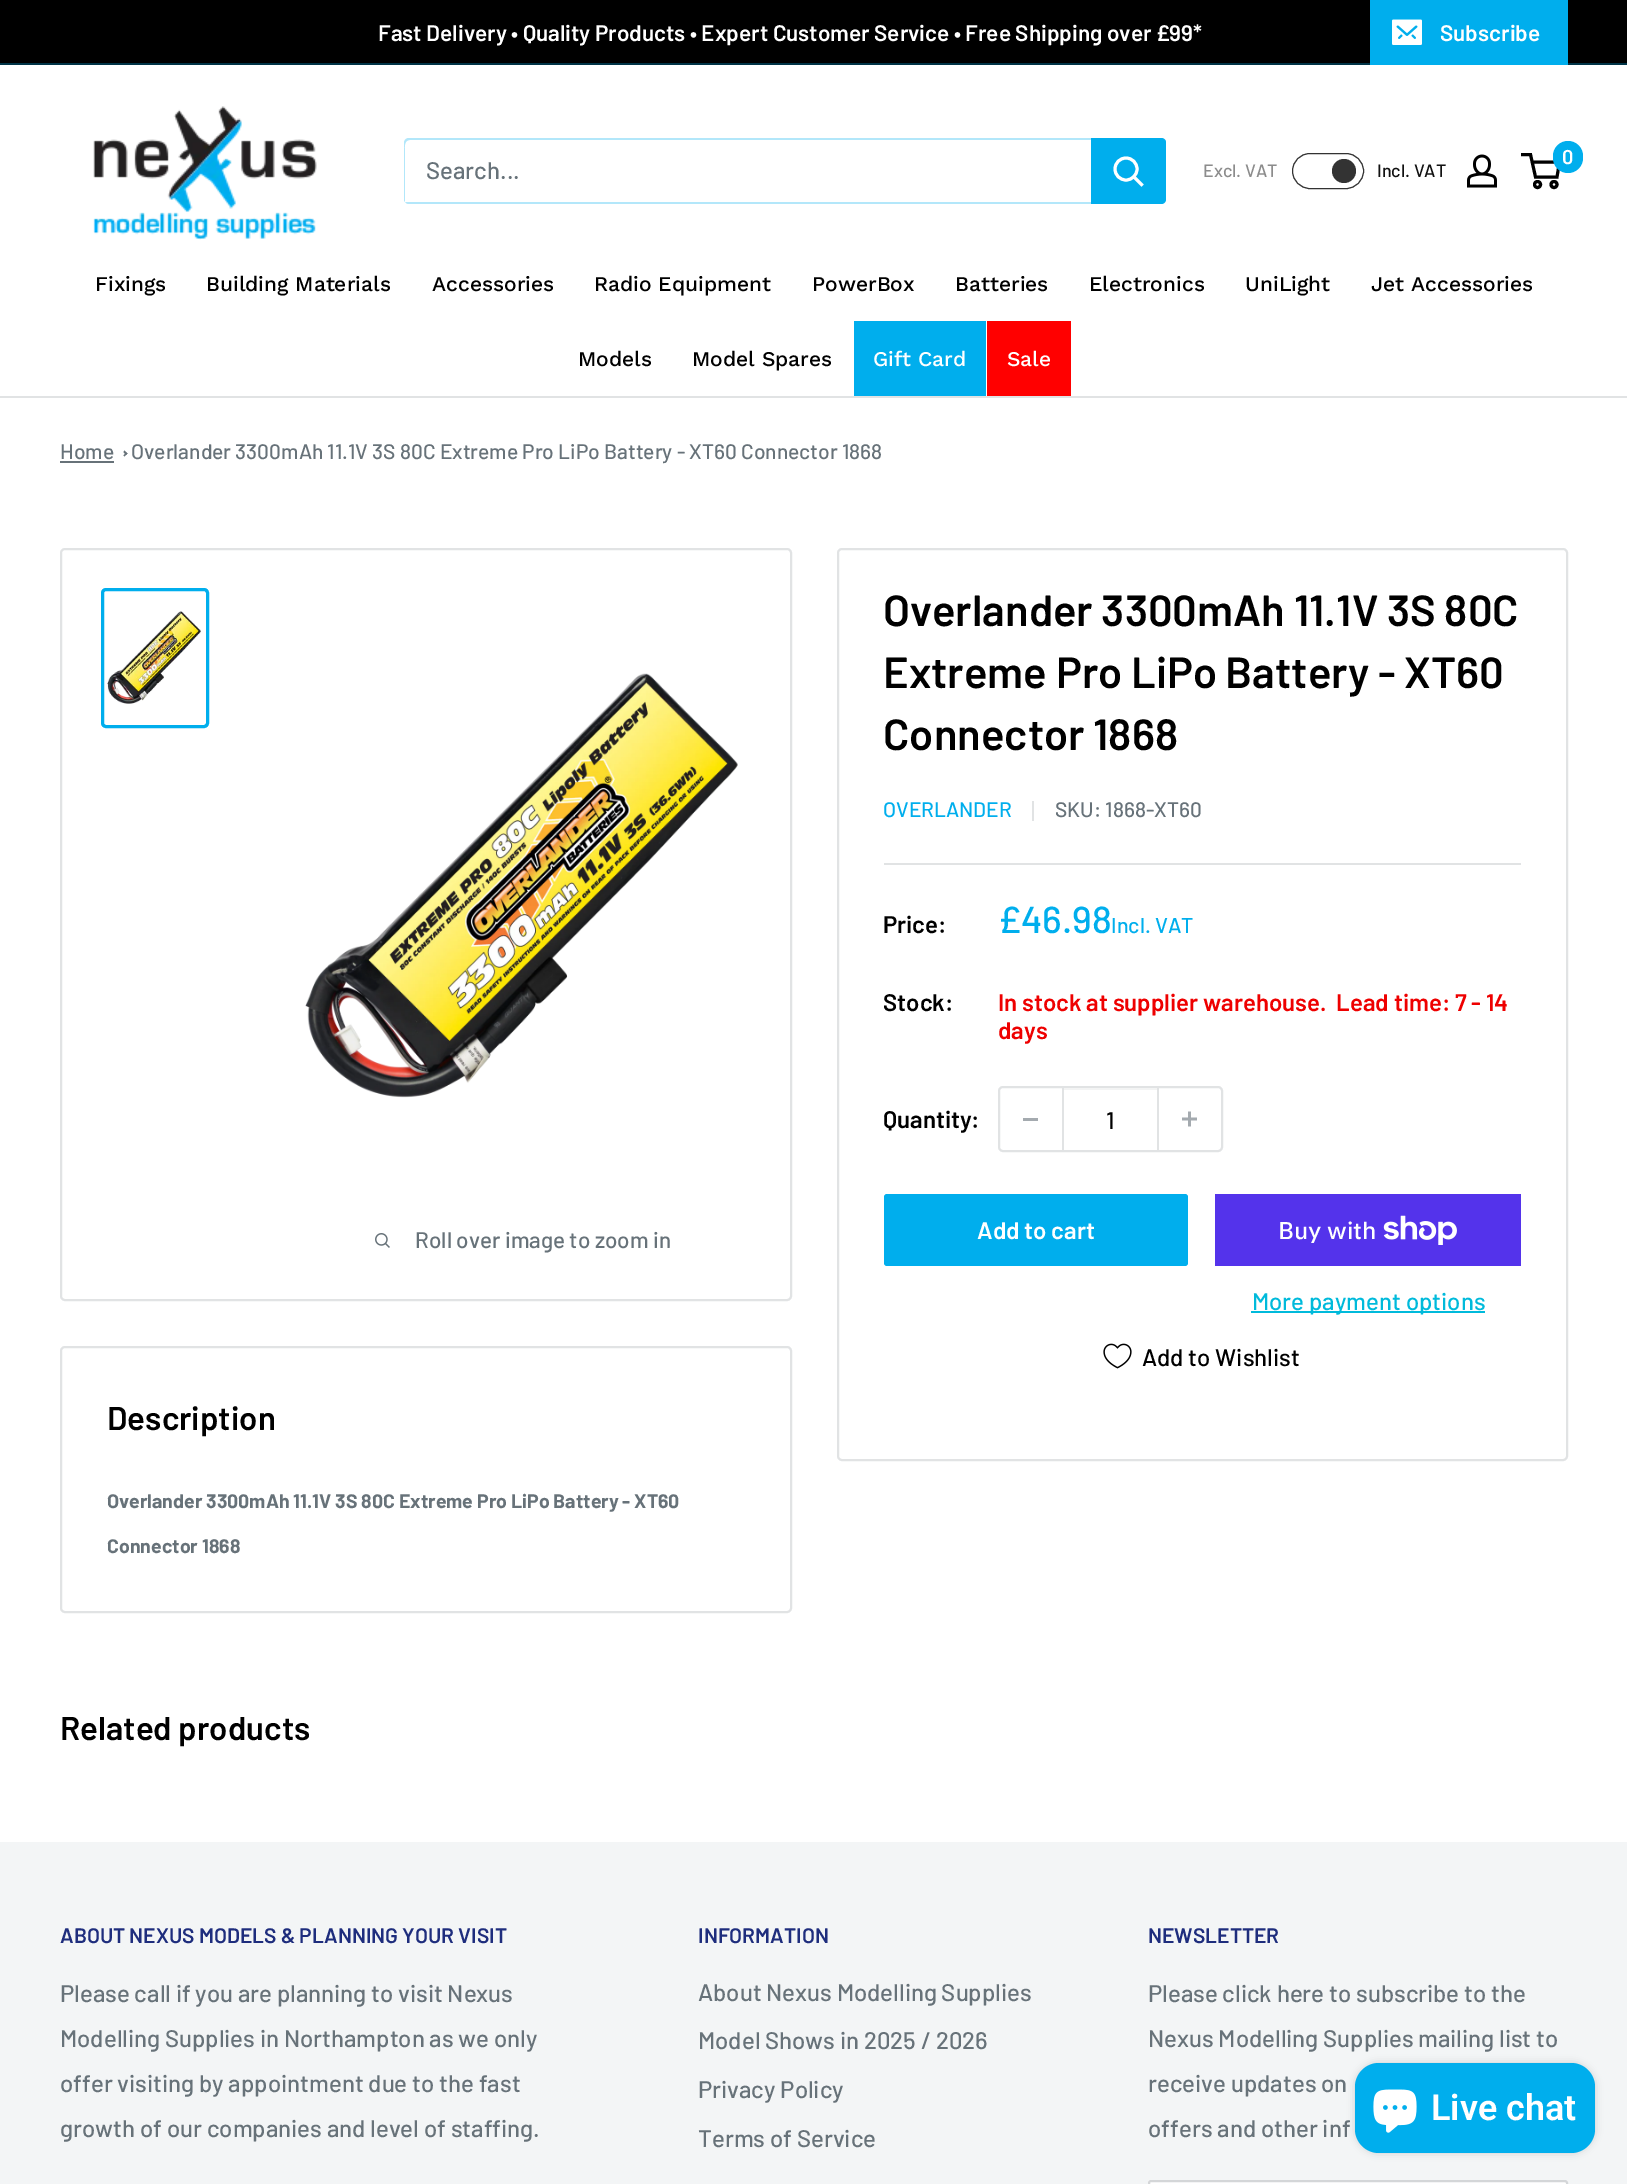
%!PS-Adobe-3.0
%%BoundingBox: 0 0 1627 2184
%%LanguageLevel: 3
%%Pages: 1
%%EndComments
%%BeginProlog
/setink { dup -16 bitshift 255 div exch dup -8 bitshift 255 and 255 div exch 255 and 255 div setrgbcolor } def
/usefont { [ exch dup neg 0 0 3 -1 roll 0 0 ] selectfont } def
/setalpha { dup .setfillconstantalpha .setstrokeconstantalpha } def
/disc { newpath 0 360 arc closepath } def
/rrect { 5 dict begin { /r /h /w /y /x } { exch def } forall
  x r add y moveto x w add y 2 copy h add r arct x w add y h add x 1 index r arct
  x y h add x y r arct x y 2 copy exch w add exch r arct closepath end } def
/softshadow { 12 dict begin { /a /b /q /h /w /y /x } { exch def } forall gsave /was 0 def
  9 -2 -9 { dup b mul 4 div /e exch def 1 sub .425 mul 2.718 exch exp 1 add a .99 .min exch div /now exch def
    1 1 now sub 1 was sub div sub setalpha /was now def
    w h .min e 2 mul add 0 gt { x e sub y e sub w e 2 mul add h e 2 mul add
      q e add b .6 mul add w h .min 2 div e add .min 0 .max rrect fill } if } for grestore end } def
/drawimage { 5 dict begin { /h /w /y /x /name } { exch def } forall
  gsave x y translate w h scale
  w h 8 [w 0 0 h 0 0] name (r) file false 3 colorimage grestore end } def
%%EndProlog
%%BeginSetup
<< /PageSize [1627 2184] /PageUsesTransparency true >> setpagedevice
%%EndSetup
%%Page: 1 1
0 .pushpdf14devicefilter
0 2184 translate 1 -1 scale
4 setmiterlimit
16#FFFFFF setink
0 0 1627 2184 rectfill
16#000000 setink
0 0 1627 63 rectfill
16#003447 setink
0 63 1627 2 rectfill
/Barlow-SemiBold 22.5 usefont
16#FFFFFF setink
378 41 moveto (Fast Delivery • Quality Products • Expert Customer Service • Free Shipping over £99*) show
16#00AEED setink
1370 63 moveto 1370 65 lineto 1568 65 lineto 1568 2 lineto 1568 63 lineto closepath fill
1370 0 198 63 rectfill
(img1.raw) 1392 19 30 26 drawimage
16#FFFFFF setink
1440 41 moveto (Subscribe) show
(img2.raw) 93 106 224 134 drawimage
16#B3E7FA setink
405 202 moveto 406 203 407 204 409 204 curveto 1161 204 lineto 1164 204 1166 202 1166 199 curveto 1166 143 lineto 1166 141 1165 139 1163 139 curveto 1164 141 lineto 1164 198 lineto 1164 200 1162 202 1160 202 curveto closepath fill
0.3 setalpha
16#00AEED setink
410 140 moveto 1162 140 lineto 1164 140 1165 141 1166 141 curveto 1165 139 1163 138 1161 138 curveto 409 138 lineto 406 138 404 140 404 143 curveto 404 199 lineto 404 200 404 201 405 202 curveto 405 154 lineto 405 149 403 140 410 140 curveto closepath fill
/Barlow-Medium 24 usefont
1 setalpha
16#677279 setink
426 179 moveto (Search...) show
16#00AEED setink
1091 138 moveto 1161 138 lineto 1164 138 1166 140 1166 143 curveto 1166 199 lineto 1166 202 1164 204 1161 204 curveto 1091 204 lineto closepath fill
16#FFFFFF setink
3 setlinewidth
2 setlinecap
1141.5 184.5 moveto 1134 177 lineto stroke
0 setlinecap
1126 169 11 disc stroke
/Barlow-Medium 18 usefont
16#8C8C8C setink
1203 177 moveto (Excl. VAT) show
16#333333 setink
1 setlinewidth
1292.5 153.5 71 35 17.5 rrect stroke
1344 171 12 disc fill
16#121212 setink
1377 177 moveto (Incl. VAT) show
(img3.raw) 1467 154 30 34 drawimage
16#000000 setink
3 setlinewidth
1537.5 184.5 3 disc stroke
1554 184.5 3 disc stroke
1532 162 moveto 1559.5 162 lineto 1557 177 lineto 1535.5 177 lineto 1530.5 154.5 lineto 1521 154.5 lineto stroke
16#00AEED setink
1553 141 30 32 15 rrect fill
/Barlow-SemiBold 20 usefont
16#FFFFFF setink
1562 164 moveto (0) show
16#E1E3E4 setink
0 396 1627 2 rectfill
/WorkSans-Medium 21 usefont
16#000000 setink
[
    [(Fixings) 95 291]
    [(Building Materials) 206 291]
    [(Accessories) 432 291]
    [(Radio Equipment) 594 291]
    [(PowerBox) 812 291]
    [(Batteries) 955 291]
    [(Electronics) 1089 291]
    [(UniLight) 1245 291]
    [(Jet Accessories) 1371 291]
    [(Models) 578 366]
    [(Model Spares) 692 366]
] { aload pop moveto show } forall
16#00AEED setink
854 321 132 75 rectfill
16#FFFFFF setink
873 366 moveto (Gift Card) show
16#FF0000 setink
987 321 84 75 rectfill
16#FFFFFF setink
1007 366 moveto (Sale) show
/Barlow-Medium 21 usefont
16#677279 setink
60 459 moveto (Home) show
60 461 54 2 rectfill
124.5 450.5 moveto 127.5 453.5 lineto 126 455 lineto 123.5 452 lineto closepath fill
126 452.5 moveto 127.5 453.5 lineto 124.5 456.5 lineto 123.5 455.5 lineto closepath fill
131 459 moveto (Overlander 3300mAh 11.1V 3S 80C Extreme Pro LiPo Battery - XT60 Connector 1868) show
16#E1E3E4 setink
2 setlinewidth
61 549 730 751 4 rrect stroke
16#00AEED setink
3 setlinewidth
102.5 589.5 105 137 3.5 rrect stroke
(img4.raw) 107 611 94 93 drawimage
(img5.raw) 305 673 433 425 drawimage
(img6.raw) 375 1233 15 15 drawimage
/Barlow-Medium 22.5 usefont
16#677279 setink
415 1248 moveto (Roll over image to zoom in) show
16#E1E3E4 setink
2 setlinewidth
838 549 729 911 4 rrect stroke
/Barlow-SemiBold 43.5 usefont
16#000000 setink
[
    [(Overlander 3300mAh 11.1V 3S 80C) 883 626]
    [(Extreme Pro LiPo Battery - XT60) 883 688]
    [(Connector 1868) 883 750]
] { aload pop moveto show } forall
/Barlow-Medium 21 usefont
16#00AEED setink
883 817 moveto (OVERLANDER) show
16#E1E3E4 setink
1032 801 2 20 rectfill
16#677279 setink
1055 817 moveto (SKU: 1868-XT60) show
16#E1E3E4 setink
884 863 637 2 rectfill
/Barlow-SemiBold 24 usefont
16#000000 setink
883 933 moveto (Price:) show
/Barlow-Medium 37.5 usefont
16#00AEED setink
998 933 moveto (£46.98) show
/Barlow-Medium 21.5 usefont
1111 933 moveto (Incl. VAT) show
/Barlow-SemiBold 24 usefont
16#000000 setink
883 1011 moveto (Stock:) show
16#EE0000 setink
998 1011 moveto (In stock at supplier warehouse.  Lead time: 7 - 14) show
998 1039 moveto (days) show
16#000000 setink
883 1128 moveto (Quantity:) show
16#E1E3E4 setink
999 1087 223 64 4 rrect stroke
[
    [1023 1118 15 3 16#A4AAAF]
    [1064 1088 93 2 16#F3F4F4]
    [1157 1088 2 63 16#E1E3E4]
    [1062 1088 2 63 16#E1E3E4]
] { aload pop setink rectfill } forall
/Barlow-Medium 24 usefont
16#000000 setink
1106 1129 moveto (1) show
(img7.raw) 1182 1111 15 16 drawimage
16#00AEED setink
884 1194 304 72 3 rrect fill
/Barlow-SemiBold 24 usefont
16#FFFFFF setink
977 1239 moveto (Add to cart) show
16#5433EB setink
1215 1194 306 72 rectfill
/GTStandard-Medium 24 usefont
16#FFFFFF setink
1278 1239 moveto (Buy with) show
(img8.raw) 1383 1215 74 30 drawimage
16#00BADB setink
1251 1311 234 2 rectfill
/Barlow-Medium 24 usefont
1252 1310 moveto (More payment options) show
(img9.raw) 1103 1343 29 26 drawimage
16#000000 setink
1142 1366 moveto (Add to Wishlist) show
16#E1E3E4 setink
61 1347 730 265 4 rrect stroke
/Barlow-SemiBold 33 usefont
16#000000 setink
107 1430 moveto (Description) show
/Barlow-Bold 19.5 usefont
16#677279 setink
107 1508 moveto (Overlander 3300mAh 11.1V 3S 80C Extreme Pro LiPo Battery - XT60) show
107 1553 moveto (Connector 1868) show
/Barlow-SemiBold 33 usefont
16#000000 setink
60 1740 moveto (Related products) show
16#F3F5F6 setink
0 1842 1627 342 rectfill
/Barlow-SemiBold 21 usefont
16#1E2D7D setink
60 1943 moveto (ABOUT NEXUS MODELS & PLANNING YOUR VISIT) show
/Barlow-Medium 24 usefont
16#677279 setink
[
    [(Please call if you are planning to visit Nexus) 60 2002]
    [(Modelling Supplies in Northampton as we only) 60 2047]
    [(offer visiting by appointment due to the fast) 60 2092]
    [(growth of our companies and level of staffing.) 60 2137]
] { aload pop moveto show } forall
/Barlow-SemiBold 21 usefont
16#1E2D7D setink
698 1943 moveto (INFORMATION) show
/Barlow-Medium 24 usefont
16#677279 setink
[
    [(About Nexus Modelling Supplies) 698 2001]
    [(Model Shows in 2025 / 2026) 698 2049]
    [(Privacy Policy) 698 2098]
    [(Terms of Service) 698 2147]
] { aload pop moveto show } forall
/Barlow-SemiBold 21 usefont
16#1E2D7D setink
1148 1943 moveto (NEWSLETTER) show
/Barlow-Medium 24 usefont
16#677279 setink
[
    [(Please click here to subscribe to the) 1148 2002]
    [(Nexus Modelling Supplies mailing list to) 1148 2047]
    [(receive updates on) 1148 2092]
    [(offers and other inf) 1148 2137]
] { aload pop moveto show } forall
16#FFFFFF setink
1148 2180 420 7 3 rrect fill
16#F8F8F8 setink
1150 2182 moveto 1564 2182 lineto 1565 2182 1566 2183 1566 2184 curveto 1566 2183 1566 2181 1564 2181 curveto 1150 2181 lineto 1149 2182 lineto 1149 2184 lineto closepath fill
16#D4D6D8 setink
1149 2181 418 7 2 rrect stroke
16#000000 setink
1355 2063 240 90 24 4 0.15 softshadow
16#00AEED setink
1355 2063 240 90 24 rrect fill
(img10.raw) 1373 2089 44 44 drawimage
/Roboto-SemiBold 36 usefont
16#FFFFFF setink
1431 2120 moveto (Live chat) show
.poppdf14devicefilter showpage
%%EOF
